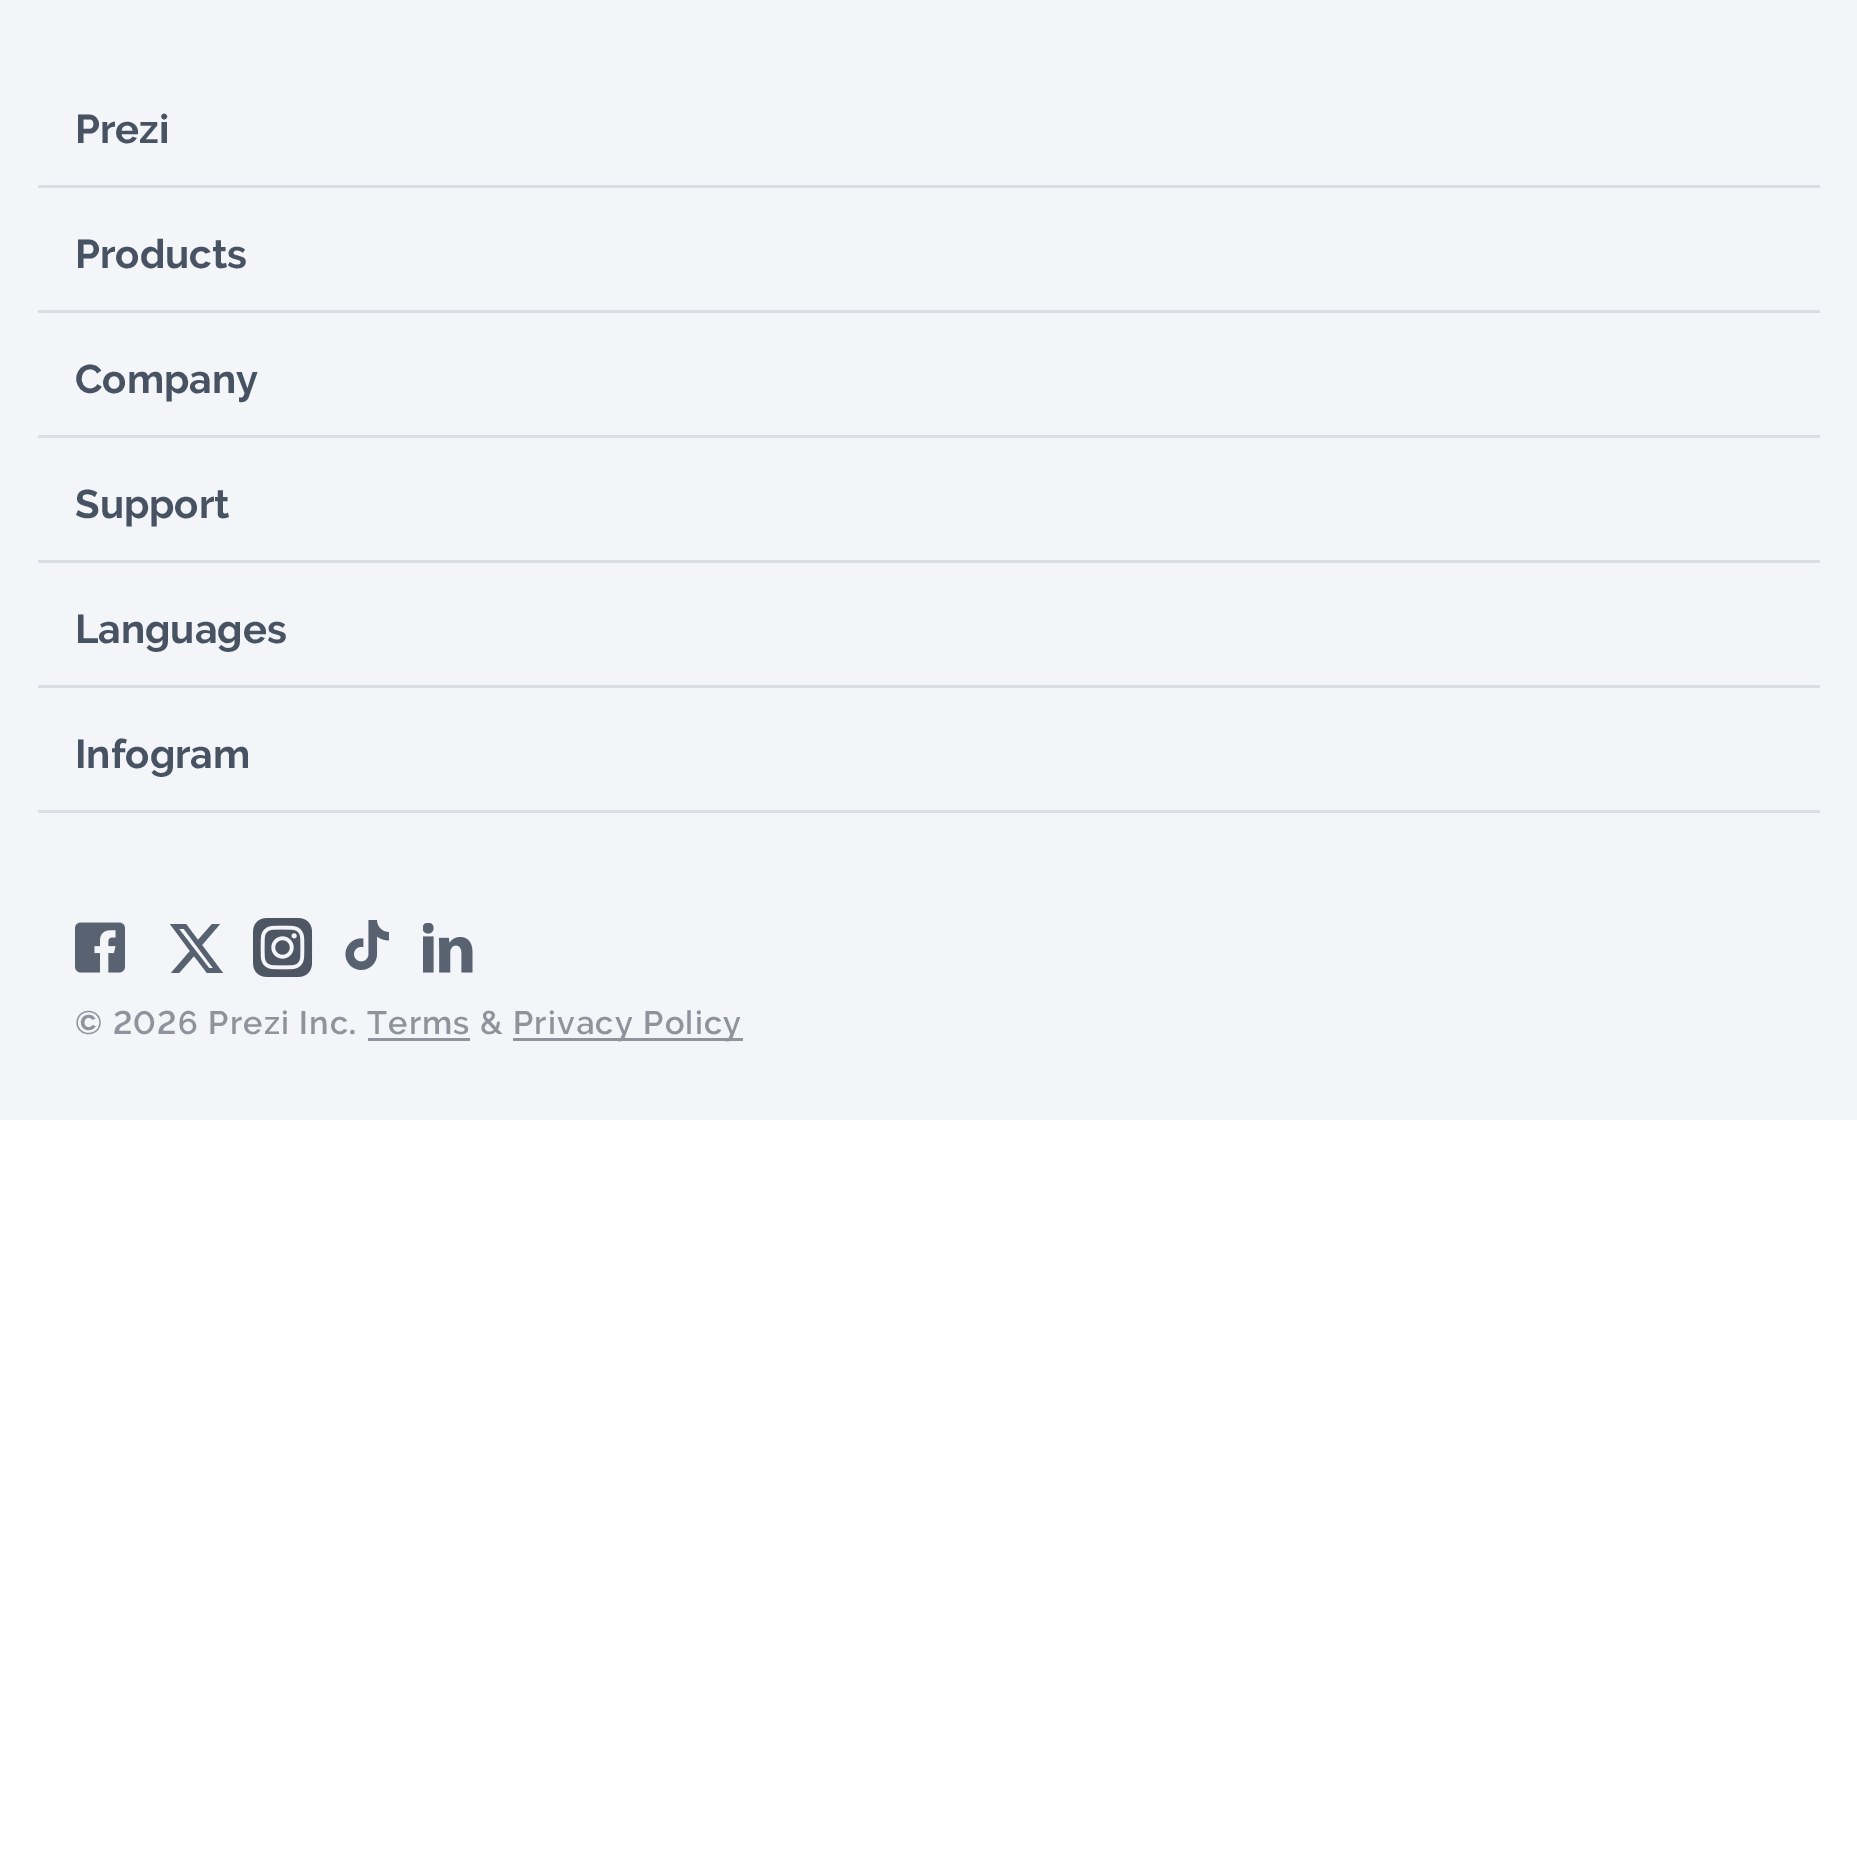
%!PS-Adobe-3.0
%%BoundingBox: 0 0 1857 1872
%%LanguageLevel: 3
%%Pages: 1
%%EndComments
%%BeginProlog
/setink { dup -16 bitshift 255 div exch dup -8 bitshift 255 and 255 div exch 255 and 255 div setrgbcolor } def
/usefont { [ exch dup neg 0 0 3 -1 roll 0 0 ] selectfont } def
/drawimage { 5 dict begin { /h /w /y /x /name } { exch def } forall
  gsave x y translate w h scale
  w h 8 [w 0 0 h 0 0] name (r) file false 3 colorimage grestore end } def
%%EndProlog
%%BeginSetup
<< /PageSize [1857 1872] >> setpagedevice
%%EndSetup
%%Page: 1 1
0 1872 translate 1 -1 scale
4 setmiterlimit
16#FFFFFF setink
0 0 1857 1872 rectfill
16#F3F5F9 setink
0 0 1857 1120 rectfill
16#DBDFE5 setink
38 185 1782 3 rectfill
/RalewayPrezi-Bold 40 usefont
16#475262 setink
75 143 moveto (Prezi) show
16#DBDFE5 setink
38 310 1782 3 rectfill
16#475262 setink
75 268 moveto (Products) show
16#DBDFE5 setink
38 435 1782 3 rectfill
16#475262 setink
75 393 moveto (Company) show
16#DBDFE5 setink
38 560 1782 3 rectfill
16#475262 setink
75 518 moveto (Support) show
16#DBDFE5 setink
38 685 1782 3 rectfill
16#475262 setink
75 643 moveto (Languages) show
16#DBDFE5 setink
38 810 1782 3 rectfill
16#475262 setink
75 768 moveto (Infogram) show
(img1.raw) 75 922 50 51 drawimage
16#57616F setink
171 973 moveto 190 951 lineto 170 924 lineto 186 924 lineto 198 940 lineto 212 924 lineto 220 924 lineto 202 945 lineto 223 973 lineto 207 973 lineto 194 956 lineto 179 973 lineto closepath 213 968 moveto 184 929 lineto 179 929 lineto 209 968 lineto closepath fill
(img2.raw) 253 918 60 60 drawimage
(img3.raw) 345 920 44 50 drawimage
(img4.raw) 423 923 50 50 drawimage
/RalewayPrezi-SemiBold 32.5 usefont
16#8E939C setink
75 1034 moveto 1.25 0 (© 2026 Prezi Inc. Terms &) ashow
513 1038 230 3 rectfill
513 1034 moveto 1.25 0 (Privacy Policy) ashow
368 1038 102 3 rectfill
showpage
%%EOF
